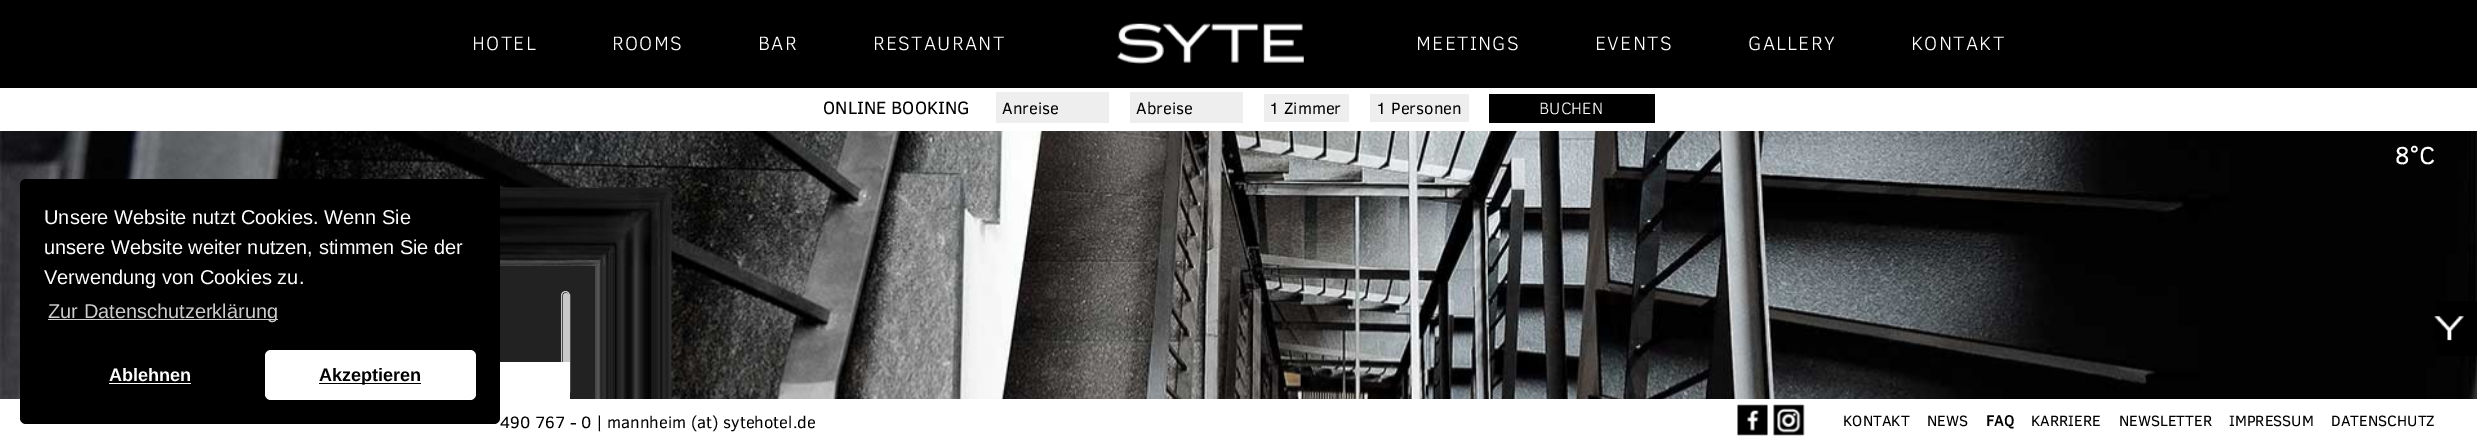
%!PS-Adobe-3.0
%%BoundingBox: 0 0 2477 443
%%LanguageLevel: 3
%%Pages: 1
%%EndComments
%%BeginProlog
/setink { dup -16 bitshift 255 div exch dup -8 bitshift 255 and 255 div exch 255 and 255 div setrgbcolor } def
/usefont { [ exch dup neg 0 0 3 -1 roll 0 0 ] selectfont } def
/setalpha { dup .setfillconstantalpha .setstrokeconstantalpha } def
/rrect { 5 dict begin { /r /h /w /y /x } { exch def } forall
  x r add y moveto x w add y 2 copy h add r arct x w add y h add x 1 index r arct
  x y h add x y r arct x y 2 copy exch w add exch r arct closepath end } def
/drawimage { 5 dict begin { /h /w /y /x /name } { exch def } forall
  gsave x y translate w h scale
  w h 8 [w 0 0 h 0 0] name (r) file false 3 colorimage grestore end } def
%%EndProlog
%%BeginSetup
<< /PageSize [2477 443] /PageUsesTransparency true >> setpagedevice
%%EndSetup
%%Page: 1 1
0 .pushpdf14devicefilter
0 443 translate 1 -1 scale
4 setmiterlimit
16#FFFFFF setink
0 0 2477 443 rectfill
16#000000 setink
0 0 2477 88 rectfill
/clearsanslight-Light 19.75 usefont
16#FFFFFF setink
472 50 moveto 1.25 0 (HOTEL) ashow
612 50 moveto 1.25 0 (ROOMS) ashow
758 50 moveto 1.25 0 (BAR) ashow
873 50 moveto 1.25 0 (RESTAURANT) ashow
(img1.raw) 1117 23 187 41 drawimage
1416 50 moveto 1.25 0 (MEETINGS) ashow
1595 50 moveto 1.25 0 (EVENTS) ashow
1748 50 moveto 1.25 0 (GALLERY) ashow
1911 50 moveto 1.25 0 (KONTAKT) ashow
/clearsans-Regular 18.25 usefont
16#000000 setink
823 114 moveto (ONLINE BOOKING) show
16#EEEEEE setink
996 92 113 31 rectfill
/clearsans-Regular 16.75 usefont
16#000000 setink
1002 114 moveto (Anreise) show
16#EEEEEE setink
1130 92 113 31 rectfill
16#000000 setink
1136 114 moveto (Abreise) show
16#EEEEEE setink
1264 94 85 28 rectfill
16#000000 setink
1269 114 moveto (1 Zimmer) show
16#EEEEEE setink
1370 94 99 28 rectfill
16#000000 setink
1376 114 moveto (1 Personen) show
1489 94 166 29 rectfill
/clearsanslight-Light 16.75 usefont
16#FFFFFF setink
1539 114 moveto (BUCHEN) show
(img2.raw) 0 131 2477 268 drawimage
/clearsanslight-Bold 24 usefont
2395 164 moveto (8°C) show
(img3.raw) 591 187 81 212 drawimage
(img4.raw) 500 187 172 80 drawimage
(img5.raw) 595 266 77 133 drawimage
[
    [500 266 95 133 16#222222]
    [500 362 70 37 16#FFFFFF]
    [2436 301 41 55 16#000000]
] { aload pop setink rectfill } forall
(img6.raw) 2433 316 31 25 drawimage
20 179 480 245 6 rrect fill
/LiberationSans-Regular 20 usefont
16#FFFFFF setink
[
    [(Unsere Website nutzt Cookies. Wenn Sie) 44 224]
    [(unsere Website weiter nutzen, stimmen Sie der) 44 254]
    [(Verwendung von Cookies zu.) 44 284]
] { aload pop moveto show } forall
16#CCCCCC setink
48 319 230 1 rectfill
48 318 moveto (Zur Datenschutzerklärung) show
/LiberationSans-Bold 18 usefont
16#FFFFFF setink
109 381 moveto (Ablehnen) show
109 383 82 1 rectfill
265 350 211 50 6 rrect fill
16#000000 setink
319 383 102 1 rectfill
319 381 moveto (Akzeptieren) show
0.75 setalpha
16#FFFFFF setink
563 293 6 102 3 rrect fill
561.5 291.5 8 104 4 rrect stroke
/clearsans-Regular 16.75 usefont
1 setalpha
16#000000 setink
500 428 moveto (490 767 - 0 | mannheim \(at\) sytehotel.de) show
(img7.raw) 1737 404 31 32 drawimage
(img8.raw) 1773 404 32 32 drawimage
/clearsans-Regular 15.25 usefont
1843 426 moveto (KONTAKT) show
1927 426 moveto (NEWS) show
/clearsans-Bold 15.25 usefont
1986 426 moveto (FAQ) show
/clearsans-Regular 15.25 usefont
[
    [(KARRIERE) 2031 426]
    [(NEWSLETTER) 2119 426]
    [(IMPRESSUM) 2229 426]
    [(DATENSCHUTZ) 2331 426]
] { aload pop moveto show } forall
.poppdf14devicefilter showpage
%%EOF
